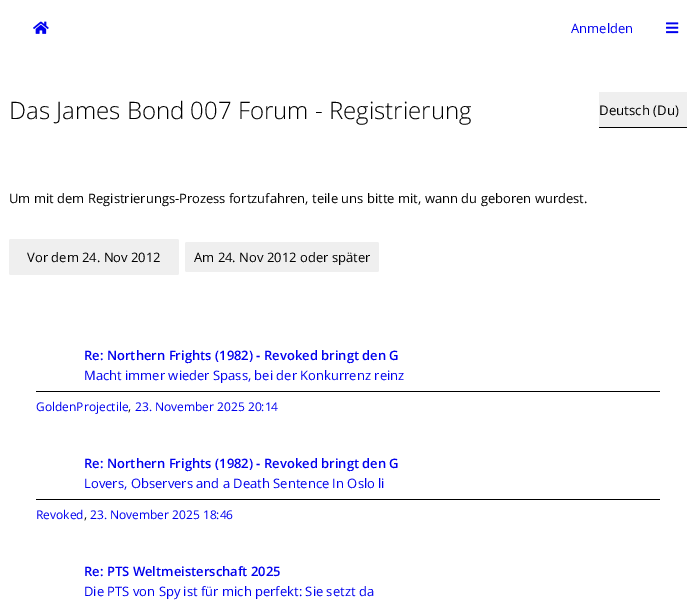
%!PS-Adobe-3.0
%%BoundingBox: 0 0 696 603
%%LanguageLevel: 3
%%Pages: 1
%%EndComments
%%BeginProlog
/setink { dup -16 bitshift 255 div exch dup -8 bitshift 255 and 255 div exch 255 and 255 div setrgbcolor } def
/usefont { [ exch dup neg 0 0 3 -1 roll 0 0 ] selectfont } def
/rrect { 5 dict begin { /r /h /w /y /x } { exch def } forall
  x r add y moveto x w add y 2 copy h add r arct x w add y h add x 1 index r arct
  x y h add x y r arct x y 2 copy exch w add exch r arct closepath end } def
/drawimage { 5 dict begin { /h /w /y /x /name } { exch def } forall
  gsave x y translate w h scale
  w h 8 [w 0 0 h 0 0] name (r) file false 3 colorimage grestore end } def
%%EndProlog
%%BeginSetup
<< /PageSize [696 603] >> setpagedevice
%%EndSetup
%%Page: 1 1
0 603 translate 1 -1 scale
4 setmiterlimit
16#FFFFFF setink
0 0 696 603 rectfill
(img1.raw) 33 21 16 13 drawimage
/OpenSans-Regular 13 usefont
16#0000EE setink
571 33 moveto (Anmelden) show
(img2.raw) 666 22 13 12 drawimage
/OpenSans-Light 24 usefont
16#000000 setink
9 119 moveto (Das James Bond 007 Forum - Registrierung) show
16#EFEFEF setink
599 92 88 35 rectfill
16#000000 setink
599 127 88 1 rectfill
/OpenSans-Regular 13.25 usefont
599 115 moveto (Deutsch \(Du\)) show
/OpenSans-Regular 13 usefont
9 203 moveto (Um mit dem Registrierungs-Prozess fortzufahren, teile uns bitte mit, wann du geboren wurdest.) show
16#EFEFEF setink
9 239 170 36 2 rrect fill
16#000000 setink
27 262 moveto (Vor dem 24. Nov 2012) show
16#EFEFEF setink
185 242 194 30 2 rrect fill
16#000000 setink
194 262 moveto (Am 24. Nov 2012 oder später) show
/OpenSans-SemiBold 13 usefont
16#0000EE setink
84 360 moveto (Re: Northern Frights \(1982\) - Revoked bringt den G) show
/OpenSans-Regular 13 usefont
84 380 moveto (Macht immer wieder Spass, bei der Konkurrenz reinz) show
16#000000 setink
36 391 624 1 rectfill
/OpenSans-Regular 12 usefont
16#0000EE setink
36 411 moveto (GoldenProjectile) show
16#000000 setink
128 411 moveto (,) show
16#0000EE setink
135 411 moveto (23. November 2025 20:14) show
/OpenSans-SemiBold 13 usefont
84 468 moveto (Re: Northern Frights \(1982\) - Revoked bringt den G) show
/OpenSans-Regular 13 usefont
84 488 moveto (Lovers, Observers and a Death Sentence In Oslo li) show
16#000000 setink
36 499 624 1 rectfill
/OpenSans-Regular 12 usefont
16#0000EE setink
36 519 moveto (Revoked) show
16#000000 setink
84 519 moveto (,) show
16#0000EE setink
90 519 moveto (23. November 2025 18:46) show
/OpenSans-SemiBold 13 usefont
84 576 moveto (Re: PTS Weltmeisterschaft 2025) show
/OpenSans-Regular 13 usefont
84 596 moveto (Die PTS von Spy ist für mich perfekt: Sie setzt da) show
showpage
%%EOF
